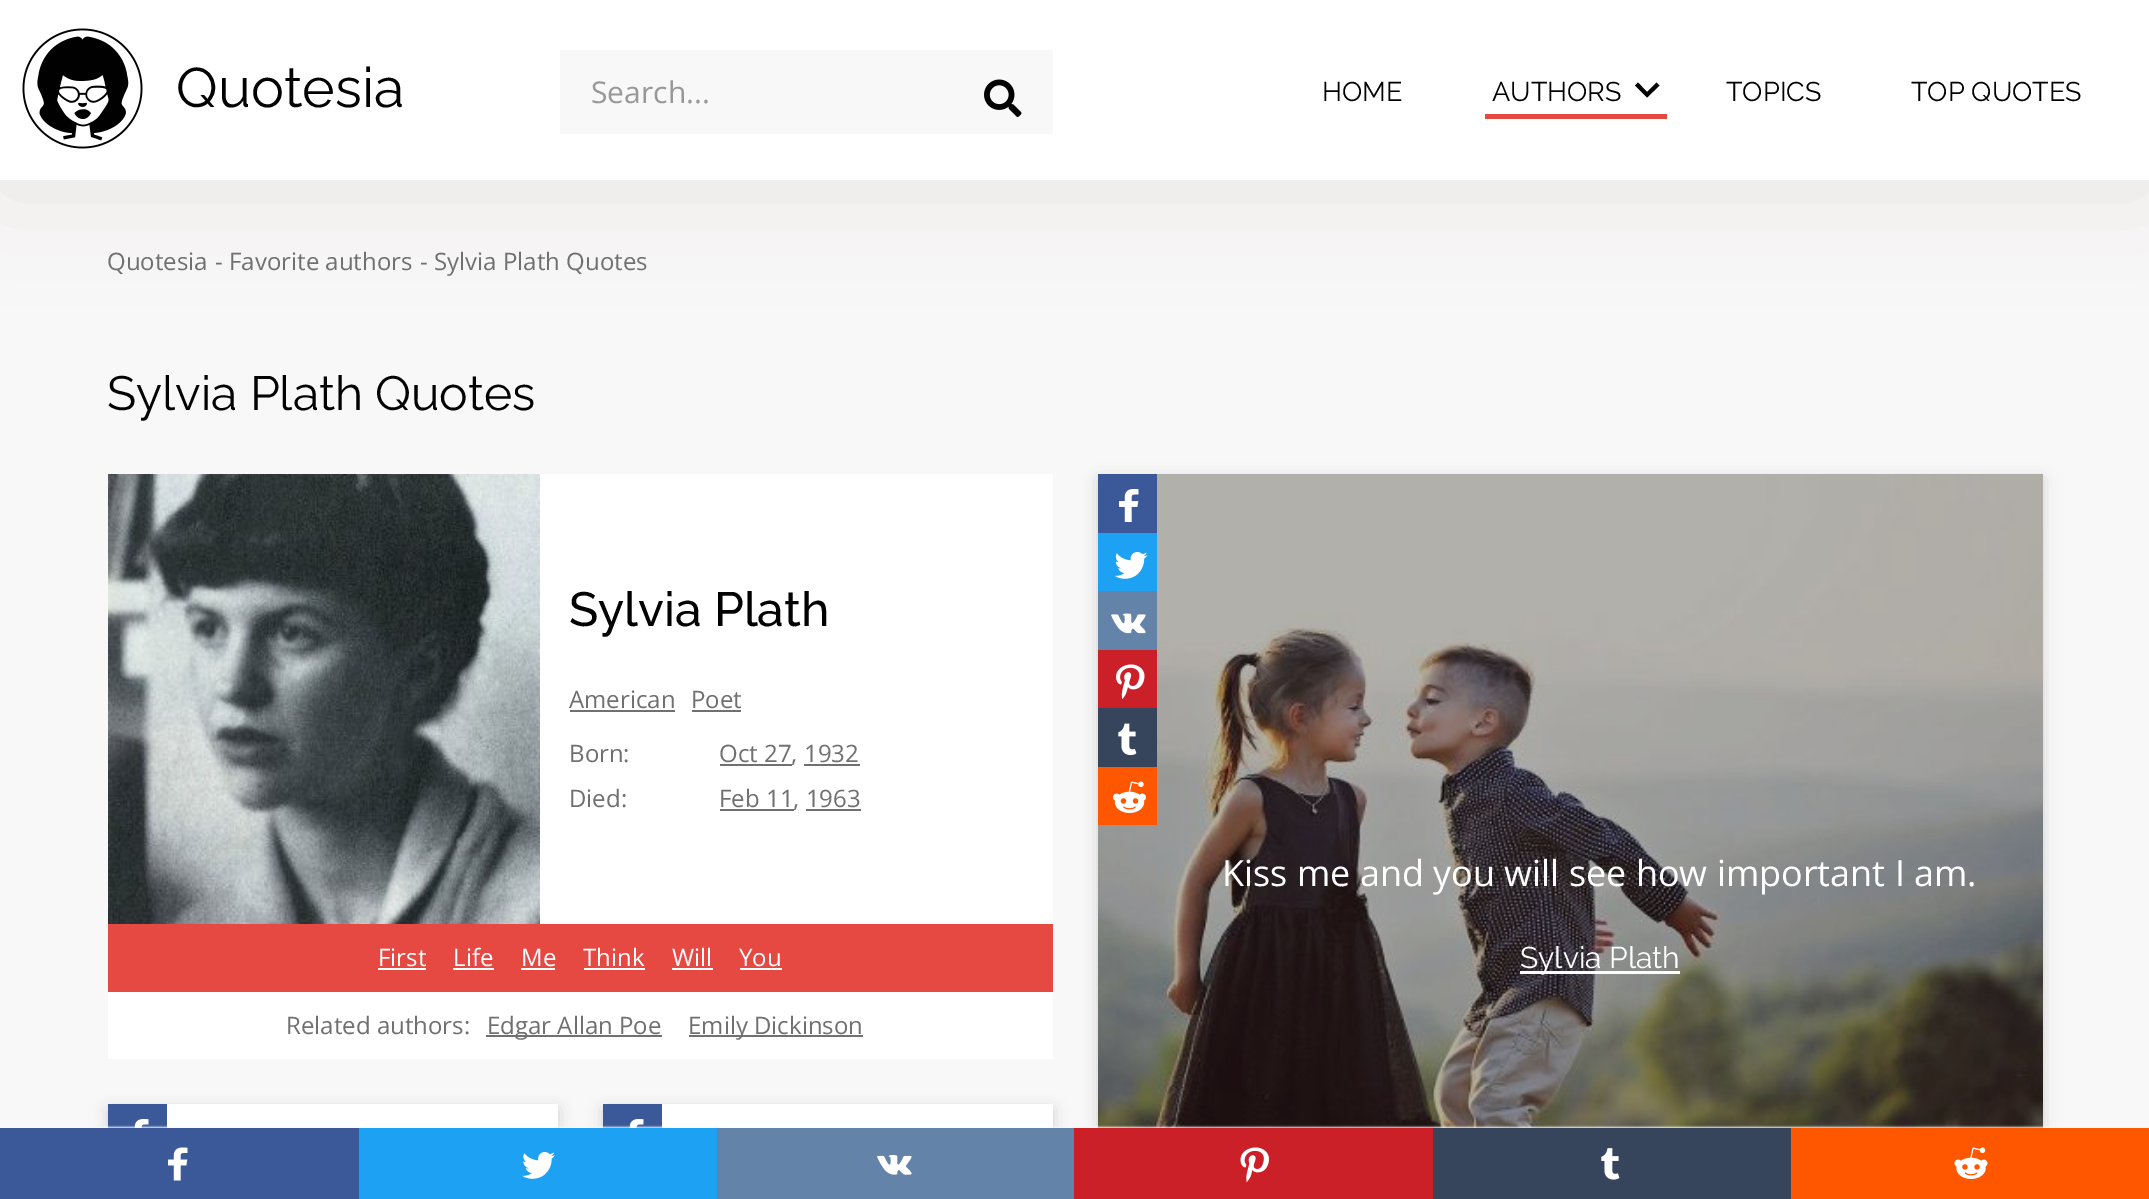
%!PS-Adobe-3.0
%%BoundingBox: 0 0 2149 1199
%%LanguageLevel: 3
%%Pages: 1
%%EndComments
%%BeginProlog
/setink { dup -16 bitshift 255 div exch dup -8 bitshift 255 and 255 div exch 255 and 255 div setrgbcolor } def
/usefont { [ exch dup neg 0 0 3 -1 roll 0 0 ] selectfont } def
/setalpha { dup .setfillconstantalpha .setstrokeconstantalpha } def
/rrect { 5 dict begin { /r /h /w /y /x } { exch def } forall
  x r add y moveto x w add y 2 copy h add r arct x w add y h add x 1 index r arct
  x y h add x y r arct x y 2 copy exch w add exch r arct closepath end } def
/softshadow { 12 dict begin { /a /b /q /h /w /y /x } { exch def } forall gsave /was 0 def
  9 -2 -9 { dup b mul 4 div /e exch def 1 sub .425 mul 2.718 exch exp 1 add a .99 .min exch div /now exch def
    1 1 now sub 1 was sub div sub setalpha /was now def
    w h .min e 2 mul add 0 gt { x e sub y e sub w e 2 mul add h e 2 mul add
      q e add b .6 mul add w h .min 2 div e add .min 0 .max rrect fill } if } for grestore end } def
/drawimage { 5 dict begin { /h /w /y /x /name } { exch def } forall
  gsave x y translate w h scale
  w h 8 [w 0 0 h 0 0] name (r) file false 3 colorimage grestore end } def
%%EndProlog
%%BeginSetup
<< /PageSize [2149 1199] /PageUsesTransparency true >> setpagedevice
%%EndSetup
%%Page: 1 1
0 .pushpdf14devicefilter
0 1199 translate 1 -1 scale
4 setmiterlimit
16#F8F8F8 setink
0 0 2149 1199 rectfill
16#8F7373 setink
0 11 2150 180 0 52.5 0.16 softshadow
16#FFFFFF setink
0 0 2149 180 rectfill
(img1.raw) 22 28 121 121 drawimage
/Raleway-Regular 55.5 usefont
16#010101 setink
176 107 moveto (Quotesia) show
16#F8F8F8 setink
560 50 493 84 rectfill
/OpenSans-Regular 30 usefont
16#989898 setink
591 103 moveto (Search...) show
(img2.raw) 984 79 38 38 drawimage
/Raleway-Regular 27 usefont
16#010101 setink
1322 101 moveto (HOME) show
1492 101 moveto (AUTHORS) show
1638 82.5 moveto 1647 92 lineto 1656.5 82.5 lineto 1659.5 85.5 lineto 1647 97.5 lineto 1635 85.5 lineto closepath fill
16#E64942 setink
1485 114 182 5 rectfill
16#010101 setink
1726 101 moveto (TOPICS) show
1911 101 moveto (TOP QUOTES) show
/OpenSans-Regular 24 usefont
16#707070 setink
[
    [(Quotesia) 107 270]
    [(- Favorite authors) 215 270]
    [(- Sylvia Plath Quotes) 420 270]
] { aload pop moveto show } forall
/Raleway-Regular 48 usefont
16#010101 setink
107 410 moveto (Sylvia Plath Quotes) show
16#FFFFFF setink
540 474 513 450 rectfill
(img3.raw) 108 474 432 450 drawimage
/Raleway-Medium 48 usefont
16#010101 setink
569 626 moveto (Sylvia Plath) show
/OpenSans-Regular 24 usefont
16#707070 setink
569 708 moveto (American) show
570 710 105 2 rectfill
691 708 moveto (Poet) show
692 710 49 2 rectfill
569 762 moveto (Born:) show
720 764 72 2 rectfill
719 762 moveto (Oct 27, 1932) show
804 764 56 2 rectfill
569 807 moveto (Died:) show
720 809 74 2 rectfill
719 807 moveto (Feb 11, 1963) show
806 809 55 2 rectfill
16#E64942 setink
108 924 945 68 rectfill
16#FFFFFF setink
378 966 moveto (First) show
378 968 48 2 rectfill
453 966 moveto (Life) show
453 968 41 2 rectfill
521 966 moveto (Me) show
521 968 34 2 rectfill
583 966 moveto (Think) show
584 968 61 2 rectfill
672 966 moveto (Will) show
672 968 41 2 rectfill
739 966 moveto (You) show
740 968 42 2 rectfill
108 992 945 67 rectfill
16#707070 setink
286 1034 moveto (Related authors:) show
486 1035 176 2 rectfill
487 1034 moveto (Edgar Allan Poe) show
689 1035 174 2 rectfill
688 1034 moveto (Emily Dickinson) show
16#000000 setink
1098 479 945 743 0 7.5 0.16 softshadow
(img10.raw) 1098 474 945 654 drawimage
16#3B5998 setink
1098 474 59 59 rectfill
(img4.raw) 1119 489 20 33 drawimage
16#1DA1F2 setink
1098 533 59 58 rectfill
(img5.raw) 1114 552 34 27 drawimage
16#6383A8 setink
1098 591 59 59 rectfill
(img6.raw) 1111 613 35 21 drawimage
16#CB2027 setink
1098 650 59 58 rectfill
(img7.raw) 1116 664 29 35 drawimage
16#37455C setink
1098 708 59 59 rectfill
(img8.raw) 1118 723 19 33 drawimage
16#FF5700 setink
1098 767 59 58 rectfill
(img9.raw) 1113 781 33 32 drawimage
/OpenSans-Regular 36 usefont
16#FFFFFF setink
1222 886 moveto (Kiss me and you will see how important I am.) show
1520 971 160 3 rectfill
/Raleway-Regular 30 usefont
1520 968 moveto (Sylvia Plath) show
16#000000 setink
108 1109 450 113 0 7.5 0.16 softshadow
16#FFFFFF setink
167 1104 391 24 rectfill
16#3B5998 setink
108 1104 59 24 rectfill
(img11.raw) 134 1119 15 9 drawimage
16#000000 setink
603 1109 450 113 0 7.5 0.16 softshadow
16#FFFFFF setink
662 1104 391 24 rectfill
16#3B5998 setink
603 1104 59 24 rectfill
(img11.raw) 629 1119 15 9 drawimage
16#F8F8F8 setink
-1 1127 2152 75 0 1 1 softshadow
16#3B5998 setink
0 1128 359 71 rectfill
(img12.raw) 168 1147 20 34 drawimage
16#1DA1F2 setink
359 1128 358 71 rectfill
(img13.raw) 522 1152 33 27 drawimage
16#6383A8 setink
717 1128 357 71 rectfill
(img14.raw) 877 1155 35 20 drawimage
16#CB2027 setink
1074 1128 359 71 rectfill
(img15.raw) 1240 1147 29 35 drawimage
16#37455C setink
1433 1128 358 71 rectfill
(img16.raw) 1601 1148 19 32 drawimage
16#FF5700 setink
1791 1128 358 71 rectfill
(img17.raw) 1954 1147 34 32 drawimage
.poppdf14devicefilter showpage
%%EOF
